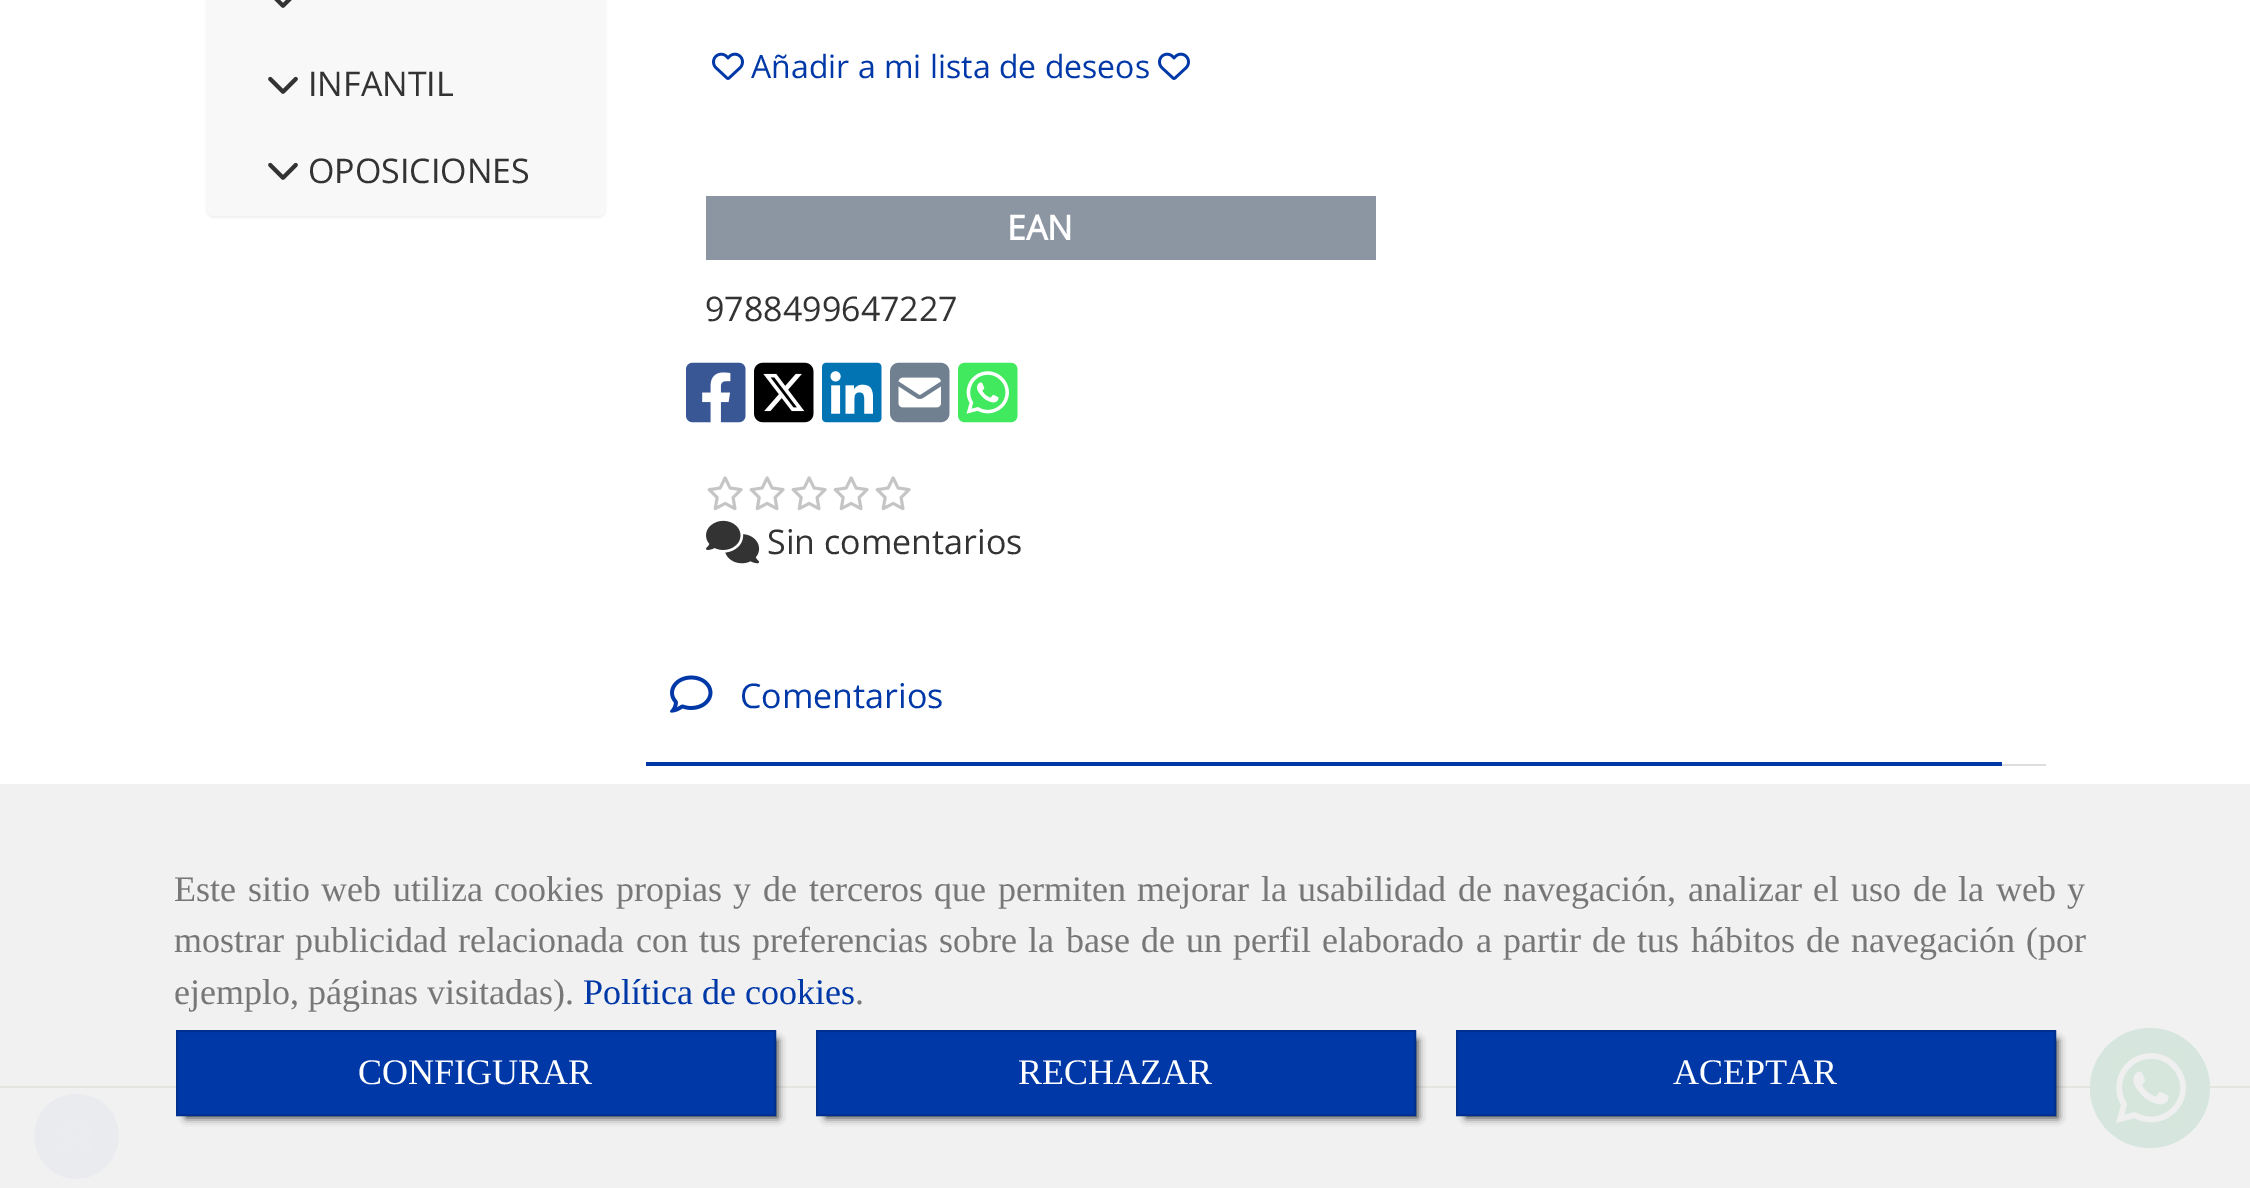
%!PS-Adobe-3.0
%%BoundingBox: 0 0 2250 1188
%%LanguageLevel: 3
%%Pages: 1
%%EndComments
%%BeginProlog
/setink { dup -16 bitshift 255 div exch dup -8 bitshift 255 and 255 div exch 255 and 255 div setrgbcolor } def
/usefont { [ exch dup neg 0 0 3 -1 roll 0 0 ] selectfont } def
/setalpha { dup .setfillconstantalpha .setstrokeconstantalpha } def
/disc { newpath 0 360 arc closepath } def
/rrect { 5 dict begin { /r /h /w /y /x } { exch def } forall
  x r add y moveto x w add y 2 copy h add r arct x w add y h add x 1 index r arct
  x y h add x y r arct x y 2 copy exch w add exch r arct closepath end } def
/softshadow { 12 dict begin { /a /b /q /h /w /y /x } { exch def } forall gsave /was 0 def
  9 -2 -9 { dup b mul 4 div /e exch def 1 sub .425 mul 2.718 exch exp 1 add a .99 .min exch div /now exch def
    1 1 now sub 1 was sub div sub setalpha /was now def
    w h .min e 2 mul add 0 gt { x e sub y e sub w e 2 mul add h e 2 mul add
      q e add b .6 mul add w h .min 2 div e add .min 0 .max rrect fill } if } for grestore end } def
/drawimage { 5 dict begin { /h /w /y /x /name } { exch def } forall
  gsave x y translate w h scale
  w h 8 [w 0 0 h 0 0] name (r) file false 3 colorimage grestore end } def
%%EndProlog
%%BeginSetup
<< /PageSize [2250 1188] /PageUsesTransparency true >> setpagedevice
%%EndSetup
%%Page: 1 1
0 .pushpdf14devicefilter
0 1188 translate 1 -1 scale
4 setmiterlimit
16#FFFFFF setink
0 0 2250 1188 rectfill
16#F1F1F1 setink
0 784 2250 404 rectfill
16#000000 setink
206 -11 400 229 8 1 0.05 softshadow
16#F8F8F8 setink
206 -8 400 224 8 rrect fill
(img1.raw) 274 0 18 8 drawimage
(img2.raw) 268 76 30 18 drawimage
/OpenSans-Regular 34 usefont
16#333333 setink
308 96 moveto (INFANTIL) show
(img2.raw) 268 162 30 18 drawimage
308 183 moveto (OPOSICIONES) show
(img3.raw) 712 52 32 28 drawimage
/OpenSans-Regular 32 usefont
16#0038A8 setink
751 78 moveto (Añadir a mi lista de deseos) show
(img3.raw) 1158 52 32 28 drawimage
16#8C95A2 setink
706 196 670 64 rectfill
/OpenSans-Bold 34 usefont
16#FFFFFF setink
1007 240 moveto (EAN) show
/OpenSans-Regular 34 usefont
16#333333 setink
705 321 moveto (9788499647227) show
(img4.raw) 686 362 60 61 drawimage
(img5.raw) 754 362 60 61 drawimage
(img6.raw) 822 362 60 61 drawimage
(img7.raw) 890 362 60 61 drawimage
(img8.raw) 958 362 60 61 drawimage
(img9.raw) 707 476 36 35 drawimage
(img9.raw) 749 476 36 35 drawimage
(img9.raw) 791 476 36 35 drawimage
(img9.raw) 833 476 36 35 drawimage
(img9.raw) 875 476 36 35 drawimage
(img10.raw) 706 520 54 44 drawimage
767 554 moveto (Sin comentarios) show
16#DDDDDD setink
2002 764 44 2 rectfill
(img11.raw) 670 675 43 38 drawimage
16#0038A8 setink
740 708 moveto (Comentarios) show
646 762 1356 4 rectfill
/LiberationSerif-Regular 36 usefont
16#777777 setink
174 901 moveto 2.6 0 32 (Este sitio web utiliza cookies propias y de terceros que permiten mejorar la usabilidad de navegación, analizar el uso de la web y) widthshow
174 952 moveto 2.25 0 32 (mostrar publicidad relacionada con tus preferencias sobre la base de un perfil elaborado a partir de tus hábitos de navegación \(por) widthshow
174 1004 moveto (ejemplo, páginas visitadas\).) show
16#0038A8 setink
583 1004 moveto (Política de cookies) show
16#777777 setink
855 1004 moveto (.) show
16#E6E4E1 setink
0 1086 2250 2 rectfill
16#000000 setink
186 1040 592 78 0 4 0.75 softshadow
16#0038A8 setink
177 1031 moveto 775 1031 lineto 775 1115 lineto 177 1115 lineto closepath gsave fill grestore
16#00308F setink
2 setlinewidth
stroke
16#FFFFFF setink
358 1084 moveto (CONFIGURAR) show
16#000000 setink
826 1040 592 78 0 4 0.75 softshadow
16#0038A8 setink
817 1031 moveto 1415 1031 lineto 1415 1115 lineto 817 1115 lineto closepath gsave fill grestore
16#00308F setink
stroke
16#FFFFFF setink
1018 1084 moveto (RECHAZAR) show
16#000000 setink
1466 1040 592 78 0 4 0.75 softshadow
16#0038A8 setink
1457 1031 moveto 2055 1031 lineto 2055 1115 lineto 1457 1115 lineto closepath gsave fill grestore
16#00308F setink
stroke
16#FFFFFF setink
1673 1084 moveto (ACEPTAR) show
16#D6E6DE setink
2150 1088 60 disc fill
(img12.raw) 2116 1053 70 70 drawimage
16#E9EBEE setink
76 1179 moveto 117 1178 134 1127 102 1102 curveto 95 1097 86 1094 76 1094 curveto 67 1094 58 1097 51 1102 curveto 19 1127 36 1178 76 1179 curveto closepath fill
(img13.raw) 61 1117 32 35 drawimage
.poppdf14devicefilter showpage
%%EOF
